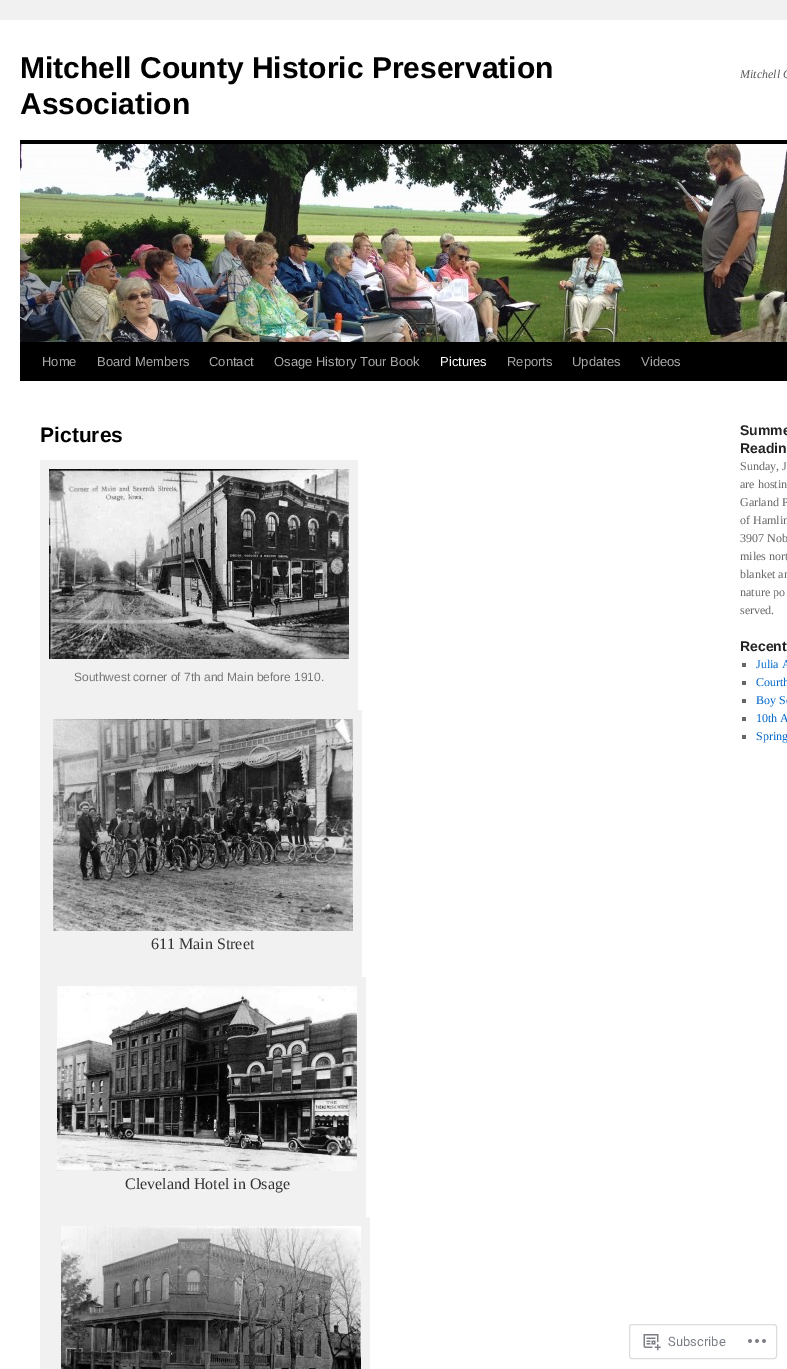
%!PS-Adobe-3.0
%%BoundingBox: 0 0 787 1369
%%LanguageLevel: 3
%%Pages: 1
%%EndComments
%%BeginProlog
/setink { dup -16 bitshift 255 div exch dup -8 bitshift 255 and 255 div exch 255 and 255 div setrgbcolor } def
/usefont { [ exch dup neg 0 0 3 -1 roll 0 0 ] selectfont } def
/rrect { 5 dict begin { /r /h /w /y /x } { exch def } forall
  x r add y moveto x w add y 2 copy h add r arct x w add y h add x 1 index r arct
  x y h add x y r arct x y 2 copy exch w add exch r arct closepath end } def
/drawimage { 5 dict begin { /h /w /y /x /name } { exch def } forall
  gsave x y translate w h scale
  w h 8 [w 0 0 h 0 0] name (r) file false 3 colorimage grestore end } def
%%EndProlog
%%BeginSetup
<< /PageSize [787 1369] >> setpagedevice
%%EndSetup
%%Page: 1 1
0 1369 translate 1 -1 scale
4 setmiterlimit
16#F1F1F1 setink
0 0 787 1369 rectfill
16#FFFFFF setink
0 20 787 1349 rectfill
/LiberationSans-Bold 30 usefont
16#000000 setink
20 78 moveto (Mitchell County Historic Preservation) show
20 114 moveto (Association) show
/LiberationSerif-Italic 12 usefont
16#595959 setink
740 78 moveto (Mitchell C) show
16#000000 setink
20 140 767 4 rectfill
20 342 767 39 rectfill
(img1.raw) 20 144 767 198 drawimage
/LiberationSans-Regular 13 usefont
16#AAAAAA setink
[
    [(Home) 42 366]
    [(Board Members) 97 366]
    [(Contact) 209 366]
    [(Osage History Tour Book) 274 366]
] { aload pop moveto show } forall
16#FFFFFF setink
440 366 moveto (Pictures) show
16#AAAAAA setink
[
    [(Reports) 507 366]
    [(Updates) 572 366]
    [(Videos) 641 366]
] { aload pop moveto show } forall
/LiberationSans-Bold 21 usefont
16#000000 setink
40 442 moveto (Pictures) show
16#F1F1F1 setink
40 460 318 909 rectfill
(img2.raw) 49 469 300 190 drawimage
/LiberationSans-Regular 12 usefont
16#777777 setink
74 681 moveto (Southwest corner of 7th and Main before 1910.) show
16#F1F1F1 setink
358 710 4 659 rectfill
(img3.raw) 53 719 300 212 drawimage
/LiberationSerif-Regular 16 usefont
16#333333 setink
151 949 moveto (611 Main Street) show
16#F1F1F1 setink
362 977 4 392 rectfill
(img4.raw) 57 986 300 185 drawimage
16#333333 setink
125 1189 moveto (Cleveland Hotel in Osage) show
16#F1F1F1 setink
366 1217 4 152 rectfill
(img5.raw) 61 1226 300 143 drawimage
/LiberationSans-Bold 14 usefont
16#222222 setink
740 435 moveto (Summe) show
740 453 moveto (Readin) show
/LiberationSerif-Regular 12 usefont
16#666666 setink
[
    [(Sunday, J) 740 470]
    [(are hostin) 740 488]
    [(Garland P) 740 506]
    [(of Hamlin) 740 524]
    [(3907 Nob) 740 542]
    [(miles nort) 740 560]
    [(blanket an) 740 578]
    [(nature po) 740 596]
    [(served.) 740 614]
] { aload pop moveto show } forall
/LiberationSans-Bold 14 usefont
16#222222 setink
740 651 moveto (Recent) show
16#666666 setink
742 663 4 4 rectfill
/LiberationSerif-Regular 12 usefont
16#0066CC setink
756 668 moveto (Julia A) show
16#666666 setink
742 681 4 4 rectfill
16#0066CC setink
756 686 moveto (Courth) show
16#666666 setink
742 699 4 4 rectfill
16#0066CC setink
756 704 moveto (Boy Sc) show
16#666666 setink
742 717 4 4 rectfill
16#0066CC setink
756 722 moveto (10th A) show
16#666666 setink
742 735 4 4 rectfill
16#0066CC setink
756 740 moveto (Spring) show
16#DDDDDF setink
629.5 1324.5 147 34 2.5 rrect stroke
(img6.raw) 643 1334 18 17 drawimage
/Roboto-Regular 13 usefont
16#7B7F85 setink
668 1346 moveto (Subscribe) show
(img7.raw) 748 1339 18 4 drawimage
showpage
%%EOF
